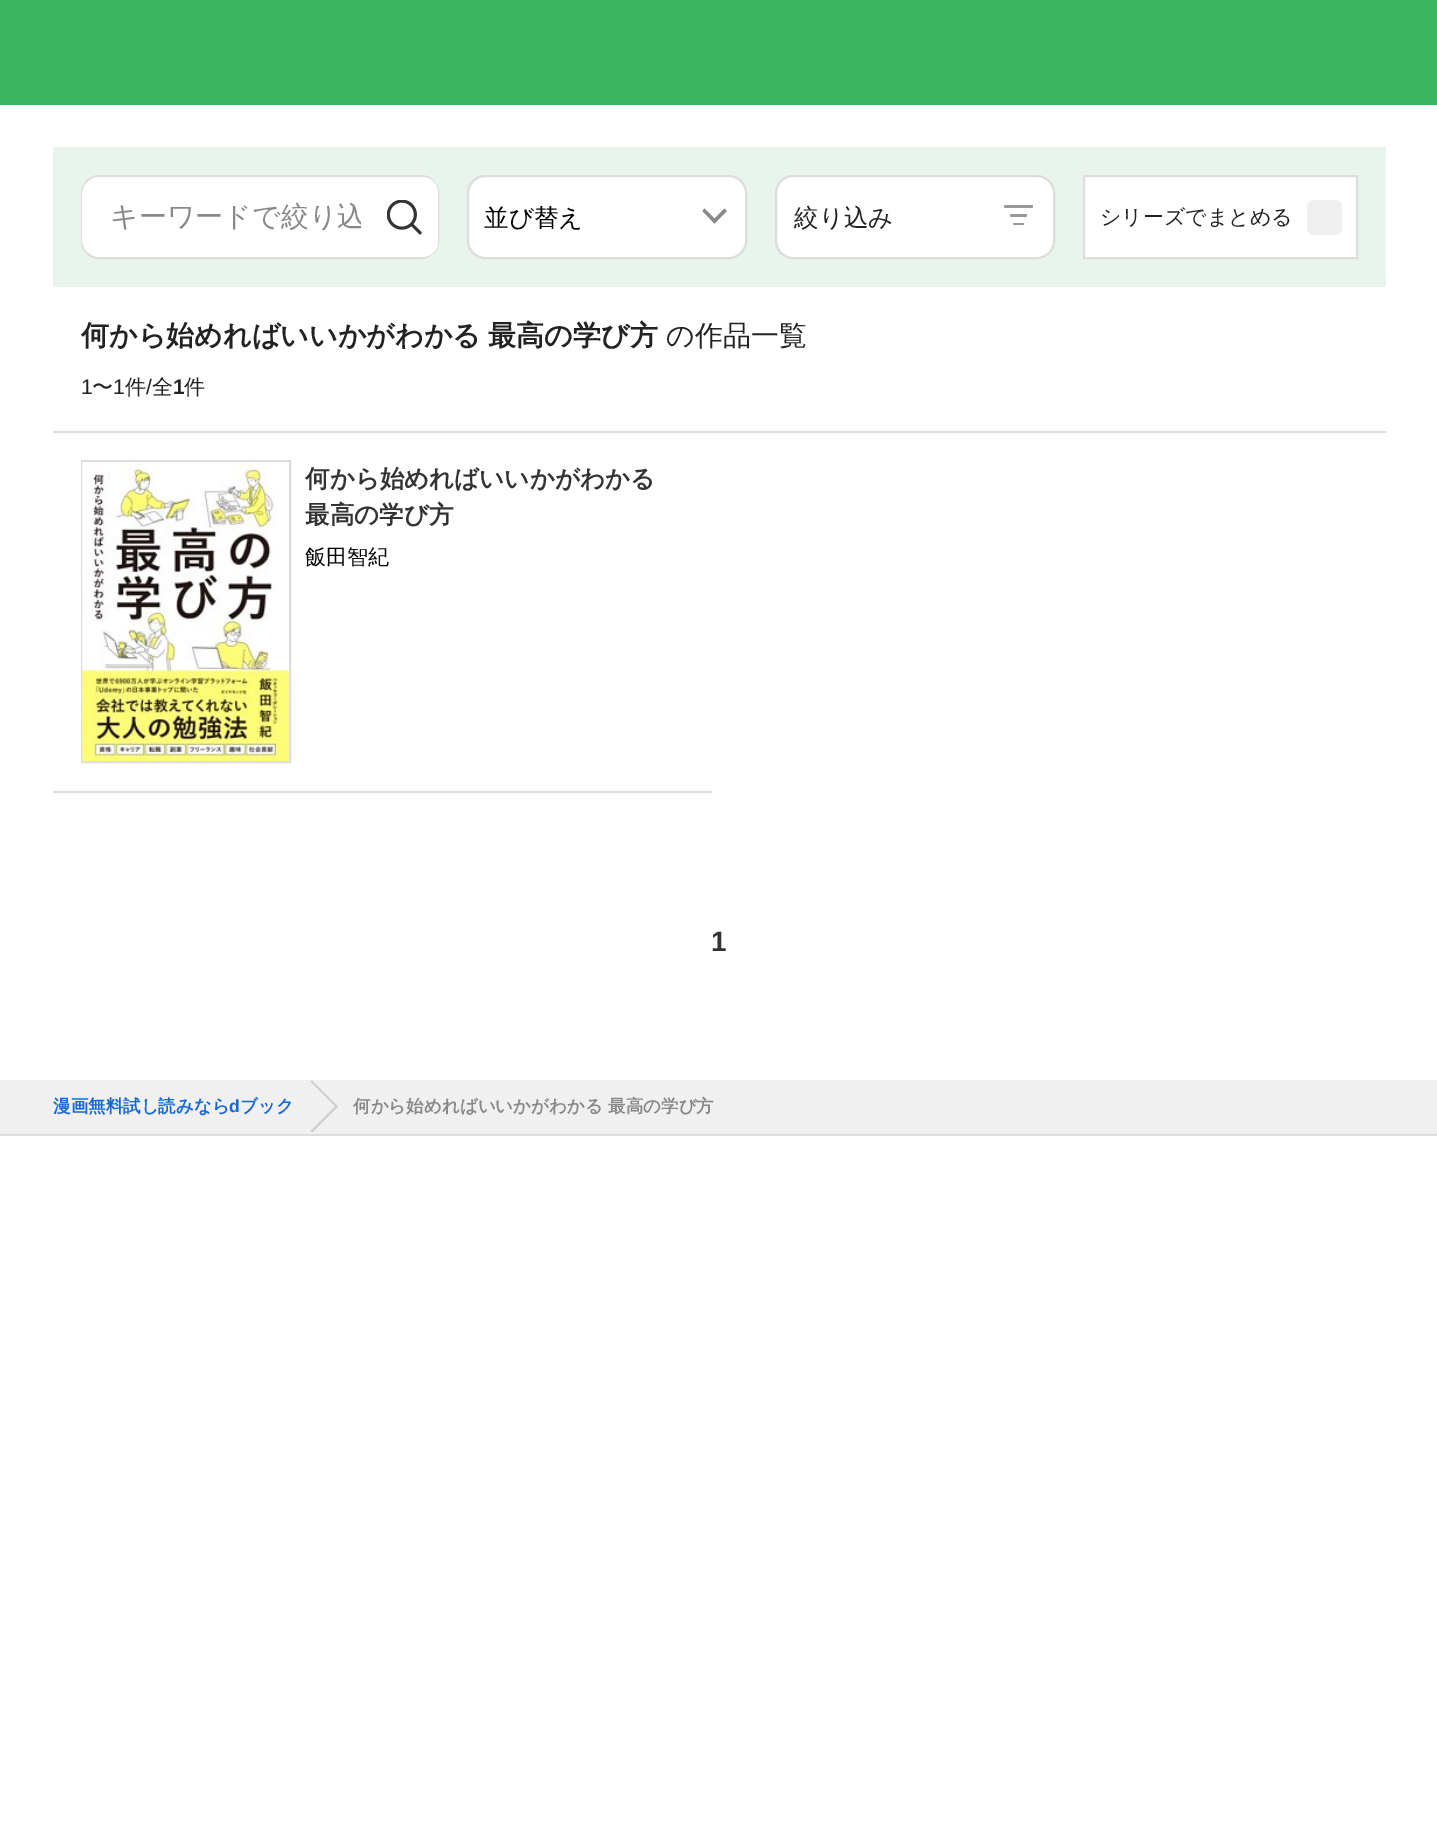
%!PS-Adobe-3.0
%%BoundingBox: 0 0 1437 1840
%%LanguageLevel: 3
%%Pages: 1
%%EndComments
%%BeginProlog
/setink { dup -16 bitshift 255 div exch dup -8 bitshift 255 and 255 div exch 255 and 255 div setrgbcolor } def
/usefont { [ exch dup neg 0 0 3 -1 roll 0 0 ] selectfont } def
/rrect { 5 dict begin { /r /h /w /y /x } { exch def } forall
  x r add y moveto x w add y 2 copy h add r arct x w add y h add x 1 index r arct
  x y h add x y r arct x y 2 copy exch w add exch r arct closepath end } def
/drawimage { 5 dict begin { /h /w /y /x /name } { exch def } forall
  gsave x y translate w h scale
  w h 8 [w 0 0 h 0 0] name (r) file false 3 colorimage grestore end } def
%%EndProlog
%%BeginSetup
<< /PageSize [1437 1840] >> setpagedevice
%%EndSetup
%%Page: 1 1
0 1840 translate 1 -1 scale
4 setmiterlimit
16#FFFFFF setink
0 0 1437 1840 rectfill
16#3CB65E setink
0 0 1437 105 rectfill
16#E8F4EC setink
53 147 1333 140 rectfill
16#DDDDDD setink
2 setlinewidth
82 176 356 82 17 rrect stroke
gsave
82 177 356 80 16 rrect clip newpath
16#FFFFFF setink
100 177 moveto 369 177 lineto 369 257 lineto 100 257 lineto 90 257 82 249 82 239 curveto 82 195 lineto 82 185 90 177 100 177 curveto closepath fill
grestore
gsave
110 200 251 36 rectclip
/WenQuanYiZenHei-Medium 28 usefont
16#888888 setink
110 226 moveto (キーワードで絞り込) show
grestore
16#FFFFFF setink
369 177 moveto 422 177 lineto 431 177 438 184 438 193 curveto 438 241 lineto 438 250 431 257 422 257 curveto 369 257 lineto closepath fill
(img1.raw) 387 200 35 35 drawimage
468 176 278 82 17 rrect gsave fill grestore
16#DDDDDD setink
stroke
/WenQuanYiZenHei-Medium 24.5 usefont
16#000000 setink
484 226 moveto (並び替え) show
16#888888 setink
727 211 moveto 714.5 223.5 lineto 712 221 lineto 724.5 208.5 lineto closepath fill
717 221 moveto 714.5 223.5 lineto 702.5 211 lineto 704.5 208.5 lineto closepath fill
16#FFFFFF setink
776 176 278 82 17 rrect gsave fill grestore
16#DDDDDD setink
stroke
16#222222 setink
794 226 moveto (絞り込み) show
16#999999 setink
1004 205 29 3 1.5 rrect fill
1010 214 17 3 1.5 rrect fill
1013 223 11 2 1 rrect fill
16#FFFFFF setink
1084 176 moveto 1357 176 lineto 1357 258 lineto 1084 258 lineto closepath gsave fill grestore
16#DDDDDD setink
stroke
/WenQuanYiZenHei-Medium 21 usefont
16#222222 setink
1100 224 moveto (シリーズでまとめる) show
16#F0F0F0 setink
1307 200 35 35 7 rrect fill
16#DDDDDD setink
53 431 1333 2 rectfill
/WenQuanYiZenHei-Bold 28 usefont
16#222222 setink
81 345 moveto -1 0 32 (何から始めればいいかがわかる 最高の学び方) widthshow
/WenQuanYiZenHei-Medium 28 usefont
666 345 moveto (の作品一覧) show
/LiberationSans-Regular 21 usefont
81 394 moveto (1) show
/WenQuanYiZenHei-Medium 21 usefont
92 394 moveto (〜) show
/LiberationSans-Regular 21 usefont
113 394 moveto (1) show
/WenQuanYiZenHei-Medium 21 usefont
125 394 moveto (件) show
/LiberationSans-Regular 21 usefont
146 394 moveto (/) show
/WenQuanYiZenHei-Medium 21 usefont
152 394 moveto (全) show
/LiberationSans-Bold 21 usefont
173 394 moveto (1) show
/WenQuanYiZenHei-Medium 21 usefont
184 394 moveto (件) show
16#DDDDDD setink
53 791 659 2 rectfill
82 461 208 301 rectstroke
(img2.raw) 82 462 207 300 drawimage
/WenQuanYiZenHei-Bold 24.5 usefont
16#333333 setink
305 487 moveto (何から始めればいいかがわかる) show
305 523 moveto (最高の学び方) show
/WenQuanYiZenHei-Medium 21 usefont
16#000000 setink
305 564 moveto (飯田智紀) show
/LiberationSans-Bold 28 usefont
16#333333 setink
711 951 moveto (1) show
16#F0F0F0 setink
0 1080 1437 54 rectfill
/WenQuanYiZenHei-Bold 17.5 usefont
16#1268D7 setink
53 1112 moveto (漫画無料試し読みなら) show
/LiberationSans-Bold 17.5 usefont
229 1112 moveto (d) show
/WenQuanYiZenHei-Bold 17.5 usefont
240 1112 moveto (ブック) show
16#CECECE setink
312 1080.5 moveto 338 1106.5 lineto 336.5 1107.5 lineto 310.5 1081.5 lineto closepath fill
336.5 1105 moveto 338 1106.5 lineto 312 1132.5 lineto 310.5 1131 lineto closepath fill
16#888888 setink
353 1112 moveto (何から始めればいいかがわかる 最高の学び方) show
16#DDDDDD setink
0 1134 1437 2 rectfill
showpage
%%EOF
